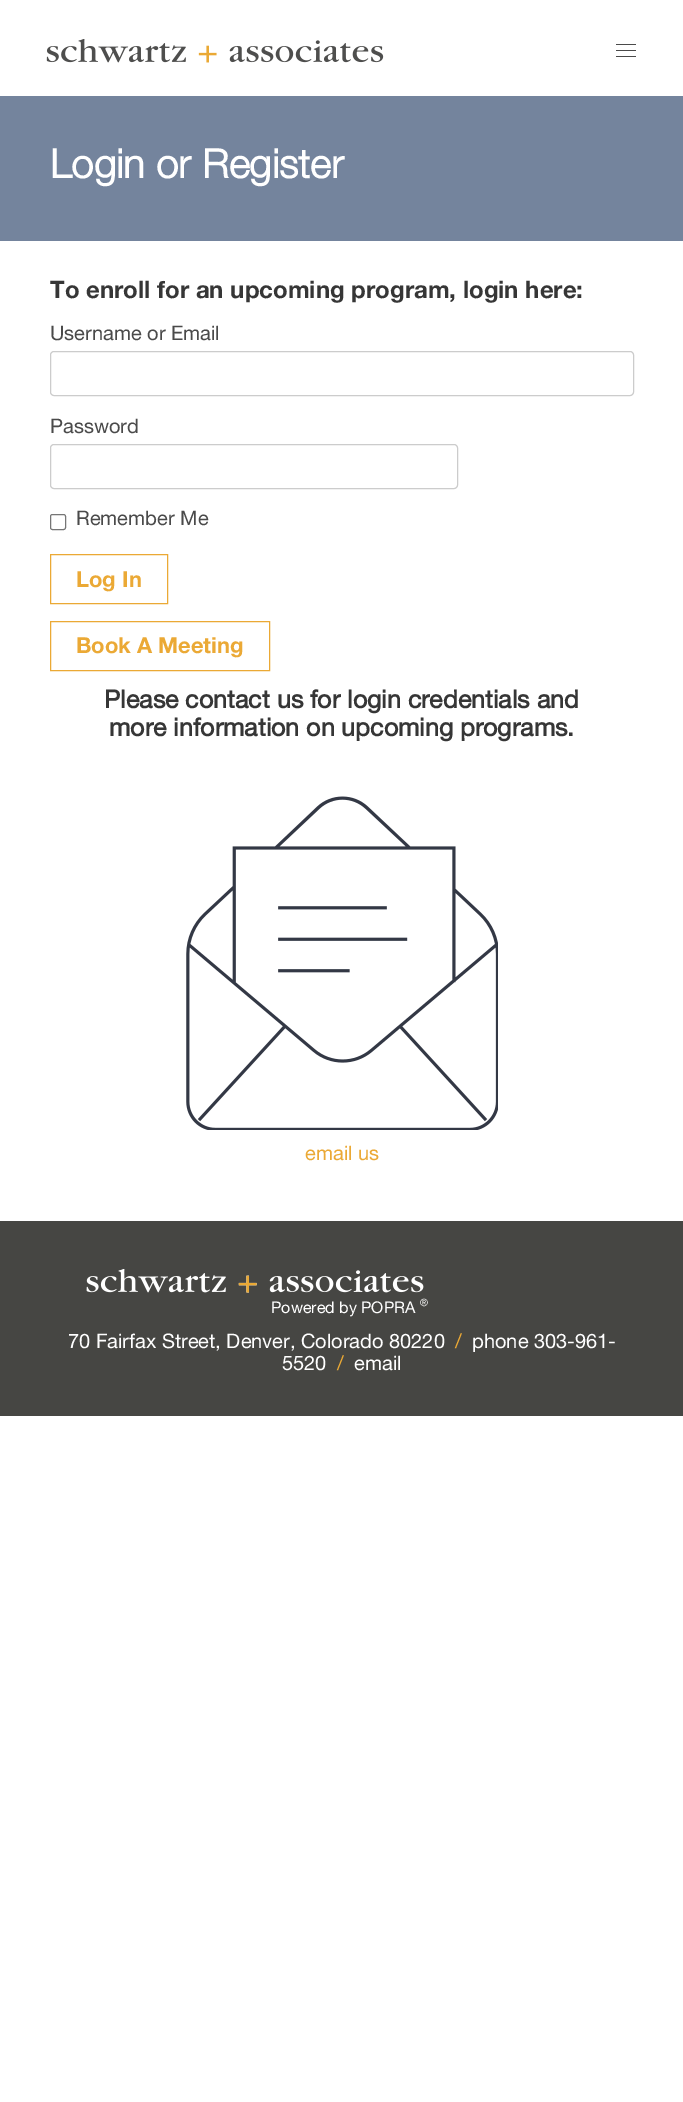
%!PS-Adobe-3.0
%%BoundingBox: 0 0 683 2102
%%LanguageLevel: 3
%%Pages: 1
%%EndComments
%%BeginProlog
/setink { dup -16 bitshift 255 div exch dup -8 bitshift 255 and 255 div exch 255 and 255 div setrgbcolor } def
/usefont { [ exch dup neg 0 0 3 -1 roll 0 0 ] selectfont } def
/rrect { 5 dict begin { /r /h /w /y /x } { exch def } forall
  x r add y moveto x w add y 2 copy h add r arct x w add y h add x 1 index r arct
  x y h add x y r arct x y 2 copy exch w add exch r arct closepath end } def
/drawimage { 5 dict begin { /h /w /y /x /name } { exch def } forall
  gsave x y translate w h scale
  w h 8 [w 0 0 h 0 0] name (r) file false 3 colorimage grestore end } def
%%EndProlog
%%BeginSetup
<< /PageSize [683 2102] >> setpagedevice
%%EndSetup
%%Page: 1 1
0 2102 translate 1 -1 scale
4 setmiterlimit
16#FFFFFF setink
0 0 683 2102 rectfill
(img1.raw) 46 39 338 24 drawimage
[
    [616 44 20 1 16#4A4A4A]
    [616 50 20 1 16#4A4A4A]
    [616 56 20 1 16#4A4A4A]
    [0 96 683 145 16#74849D]
] { aload pop setink rectfill } forall
/HelveticaNeue-Bold 40 usefont
16#FFFFFF setink
50 178 moveto (Login or Register) show
/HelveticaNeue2-Bold 24 usefont
16#363636 setink
50 298 moveto (To enroll for an upcoming program, login here:) show
/HelveticaNeue-Regular 20 usefont
16#4A4A4A setink
50 340 moveto (Username or Email) show
16#CCCCCC setink
50.5 351.5 583 44 3.5 rrect stroke
16#4A4A4A setink
50 433 moveto (Password) show
16#CCCCCC setink
50.5 444.5 407 44 3.5 rrect stroke
16#767676 setink
50.5 514.5 15 15 2 rrect stroke
16#4A4A4A setink
76 525 moveto (Remember Me) show
16#EBA935 setink
50.5 554.5 117 49 rectstroke
/HelveticaNeue2-Bold 22 usefont
76 587 moveto (Log In) show
50.5 621.5 219 49 rectstroke
76 653 moveto (Book A Meeting) show
/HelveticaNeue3-Bold 25 usefont
16#363636 setink
104 708 moveto (Please contact us for login credentials and) show
109 736 moveto (more information on upcoming programs.) show
(img2.raw) 186 796 312 334 drawimage
/HelveticaNeue-Regular 20 usefont
16#EBA935 setink
305 1160 moveto (email us) show
16#464643 setink
0 1221 683 195 rectfill
(img3.raw) 86 1269 338 24 drawimage
/HelveticaNeue-Regular 16 usefont
16#FFFFFF setink
271 1313 moveto (Powered by POPRA) show
/HelveticaNeue-Regular 10 usefont
420 1306 moveto (®) show
/HelveticaNeue-Regular 20 usefont
68 1348 moveto (70 Fairfax Street, Denver, Colorado 80220) show
16#EBA935 setink
455 1348 moveto (/) show
16#FFFFFF setink
472 1348 moveto (phone 303-961-) show
282 1370 moveto (5520) show
16#EBA935 setink
337 1370 moveto (/) show
16#FFFFFF setink
354 1370 moveto (email) show
showpage
%%EOF
